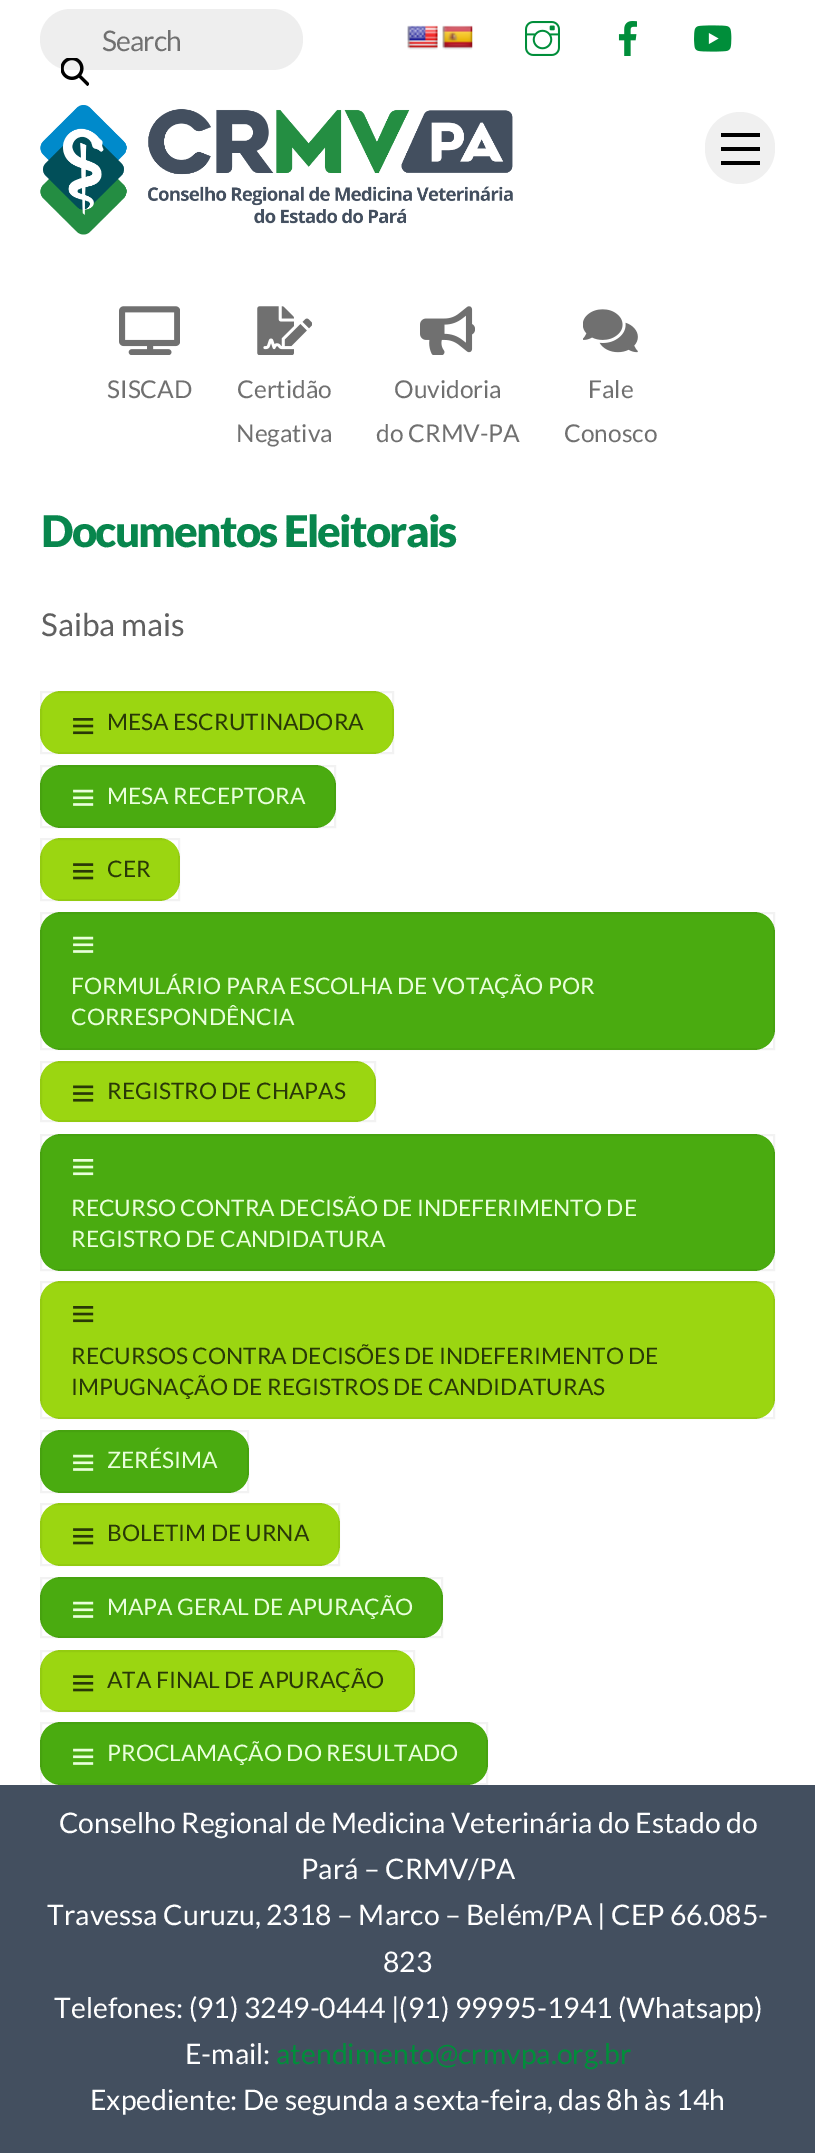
%!PS-Adobe-3.0
%%BoundingBox: 0 0 815 2153
%%LanguageLevel: 3
%%Pages: 1
%%EndComments
%%BeginProlog
/setink { dup -16 bitshift 255 div exch dup -8 bitshift 255 and 255 div exch 255 and 255 div setrgbcolor } def
/usefont { [ exch dup neg 0 0 3 -1 roll 0 0 ] selectfont } def
/setalpha { dup .setfillconstantalpha .setstrokeconstantalpha } def
/rrect { 5 dict begin { /r /h /w /y /x } { exch def } forall
  x r add y moveto x w add y 2 copy h add r arct x w add y h add x 1 index r arct
  x y h add x y r arct x y 2 copy exch w add exch r arct closepath end } def
/drawimage { 5 dict begin { /h /w /y /x /name } { exch def } forall
  gsave x y translate w h scale
  w h 8 [w 0 0 h 0 0] name (r) file false 3 colorimage grestore end } def
%%EndProlog
%%BeginSetup
<< /PageSize [815 2153] /PageUsesTransparency true >> setpagedevice
%%EndSetup
%%Page: 1 1
0 .pushpdf14devicefilter
0 2153 translate 1 -1 scale
4 setmiterlimit
16#FFFFFF setink
0 0 815 2153 rectfill
16#EEEEEE setink
40 9 263 61 30.5 rrect fill
/Lato-Regular 28.35 usefont
16#707070 setink
102 51 moveto -1 0 (Search) ashow
(img1.raw) 61 58 28 28 drawimage
(img2.raw) 407 25 31 25 drawimage
(img3.raw) 442 25 31 25 drawimage
(img4.raw) 525 21 35 35 drawimage
(img5.raw) 618 21 19 35 drawimage
(img6.raw) 694 25 38 27 drawimage
(img7.raw) 119 306 61 49 drawimage
/Lato-Regular 24.5 usefont
107 398 moveto (SISCAD) show
(img8.raw) 257 306 55 49 drawimage
237 398 moveto (Certidão) show
236 442 moveto (Negativa) show
(img9.raw) 420 306 55 49 drawimage
394 398 moveto (Ouvidoria) show
376 442 moveto (do CRMV-PA) show
(img10.raw) 583 309 55 44 drawimage
588 398 moveto (Fale) show
564 442 moveto (Conosco) show
(img11.raw) 40 105 473 130 drawimage
16#F0F0F0 setink
705 112 70 72 35 rrect fill
[
    [721 161 39 4 16#000000]
    [721 133 39 4 16#000000]
    [721 147 39 4 16#000000]
] { aload pop setink rectfill } forall
/Lato-Black 43.75 usefont
16#08864D setink
41 547 moveto -1.75 0 (Documentos Eleitorais) ashow
/Lato-Regular 31.5 usefont
16#606060 setink
41 636 moveto (Saiba mais) show
16#9BD611 setink
40 691 354 63 21 rrect fill
0.05 setalpha
16#000000 setink
2 setlinewidth
41 692 352 61 rectstroke
1 setalpha
(img12.raw) 73 718 21 17 drawimage
/Lato-Regular 22.75 usefont
16#293807 setink
107 730 moveto (MESA ESCRUTINADORA) show
16#4AAB10 setink
40 765 296 63 21 rrect fill
0.05 setalpha
16#000000 setink
41 766 294 61 rectstroke
1 setalpha
(img13.raw) 73 789 21 17 drawimage
16#E9FFDB setink
107 804 moveto (MESA RECEPTORA) show
16#9BD611 setink
40 838 140 63 21 rrect fill
0.05 setalpha
16#000000 setink
41 839 138 61 rectstroke
1 setalpha
(img14.raw) 73 863 21 17 drawimage
16#293807 setink
107 877 moveto (CER) show
16#4AAB10 setink
40 912 735 138 21 rrect fill
0.05 setalpha
16#000000 setink
41 913 733 136 rectstroke
1 setalpha
(img13.raw) 73 936 21 17 drawimage
16#E9FFDB setink
71 994 moveto (FORMULÁRIO PARA ESCOLHA DE VOTAÇÃO POR) show
71 1025 moveto (CORRESPONDÊNCIA) show
16#9BD611 setink
40 1061 336 61 21 rrect fill
0.05 setalpha
16#000000 setink
41 1062 334 59 rectstroke
1 setalpha
(img15.raw) 73 1085 21 17 drawimage
16#293807 setink
107 1099 moveto (REGISTRO DE CHAPAS) show
16#4AAB10 setink
40 1134 735 137 21 rrect fill
0.05 setalpha
16#000000 setink
41 1135 733 135 rectstroke
1 setalpha
(img16.raw) 73 1159 21 17 drawimage
16#E9FFDB setink
71 1216 moveto (RECURSO CONTRA DECISÃO DE INDEFERIMENTO DE) show
71 1247 moveto (REGISTRO DE CANDIDATURA) show
16#9BD611 setink
40 1281 735 138 21 rrect fill
0.05 setalpha
16#000000 setink
41 1282 733 136 rectstroke
1 setalpha
(img12.raw) 73 1306 21 17 drawimage
16#293807 setink
71 1364 moveto (RECURSOS CONTRA DECISÕES DE INDEFERIMENTO DE) show
71 1395 moveto (IMPUGNAÇÃO DE REGISTROS DE CANDIDATURAS) show
16#4AAB10 setink
40 1430 209 63 21 rrect fill
0.05 setalpha
16#000000 setink
41 1431 207 61 rectstroke
1 setalpha
(img13.raw) 73 1454 21 17 drawimage
16#E9FFDB setink
107 1468 moveto (ZERÉSIMA) show
16#9BD611 setink
40 1503 300 63 21 rrect fill
0.05 setalpha
16#000000 setink
41 1504 298 61 rectstroke
1 setalpha
(img14.raw) 73 1528 21 17 drawimage
16#293807 setink
107 1541 moveto (BOLETIM DE URNA) show
16#4AAB10 setink
40 1577 403 61 21 rrect fill
0.05 setalpha
16#000000 setink
41 1578 401 59 rectstroke
1 setalpha
(img13.raw) 73 1601 21 17 drawimage
16#E9FFDB setink
107 1615 moveto (MAPA GERAL DE APURAÇÃO) show
16#9BD611 setink
40 1650 375 62 21 rrect fill
0.05 setalpha
16#000000 setink
41 1651 373 60 rectstroke
1 setalpha
(img14.raw) 73 1675 21 17 drawimage
16#293807 setink
107 1688 moveto (ATA FINAL DE APURAÇÃO) show
16#4AAB10 setink
40 1722 448 63 21 rrect fill
0.05 setalpha
16#000000 setink
41 1723 446 61 rectstroke
1 setalpha
(img13.raw) 73 1748 21 17 drawimage
16#E9FFDB setink
107 1761 moveto (PROCLAMAÇÃO DO RESULTADO) show
16#434F5F setink
0 1785 815 368 rectfill
/Lato-Regular 28.35 usefont
16#FFFFFF setink
[
    [(Conselho Regional de Medicina Veterinária do Estado do) 59 1833]
    [(Pará – CRMV/PA) 301 1879]
    [(Travessa Curuzu, 2318 – Marco – Belém/PA | CEP 66.085-) 47 1925]
    [(823) 383 1972]
    [(Telefones: \(91\) 3249-0444 |\(91\) 99995-1941 \(Whatsapp\)) 54 2018]
    [(E-mail:) 185 2064]
] { aload pop moveto show } forall
16#008E3A setink
276 2064 moveto (atendimento@crmvpa.org.br) show
16#FFFFFF setink
90 2110 moveto (Expediente: De segunda a sexta-feira, das 8h às 14h) show
.poppdf14devicefilter showpage
%%EOF
